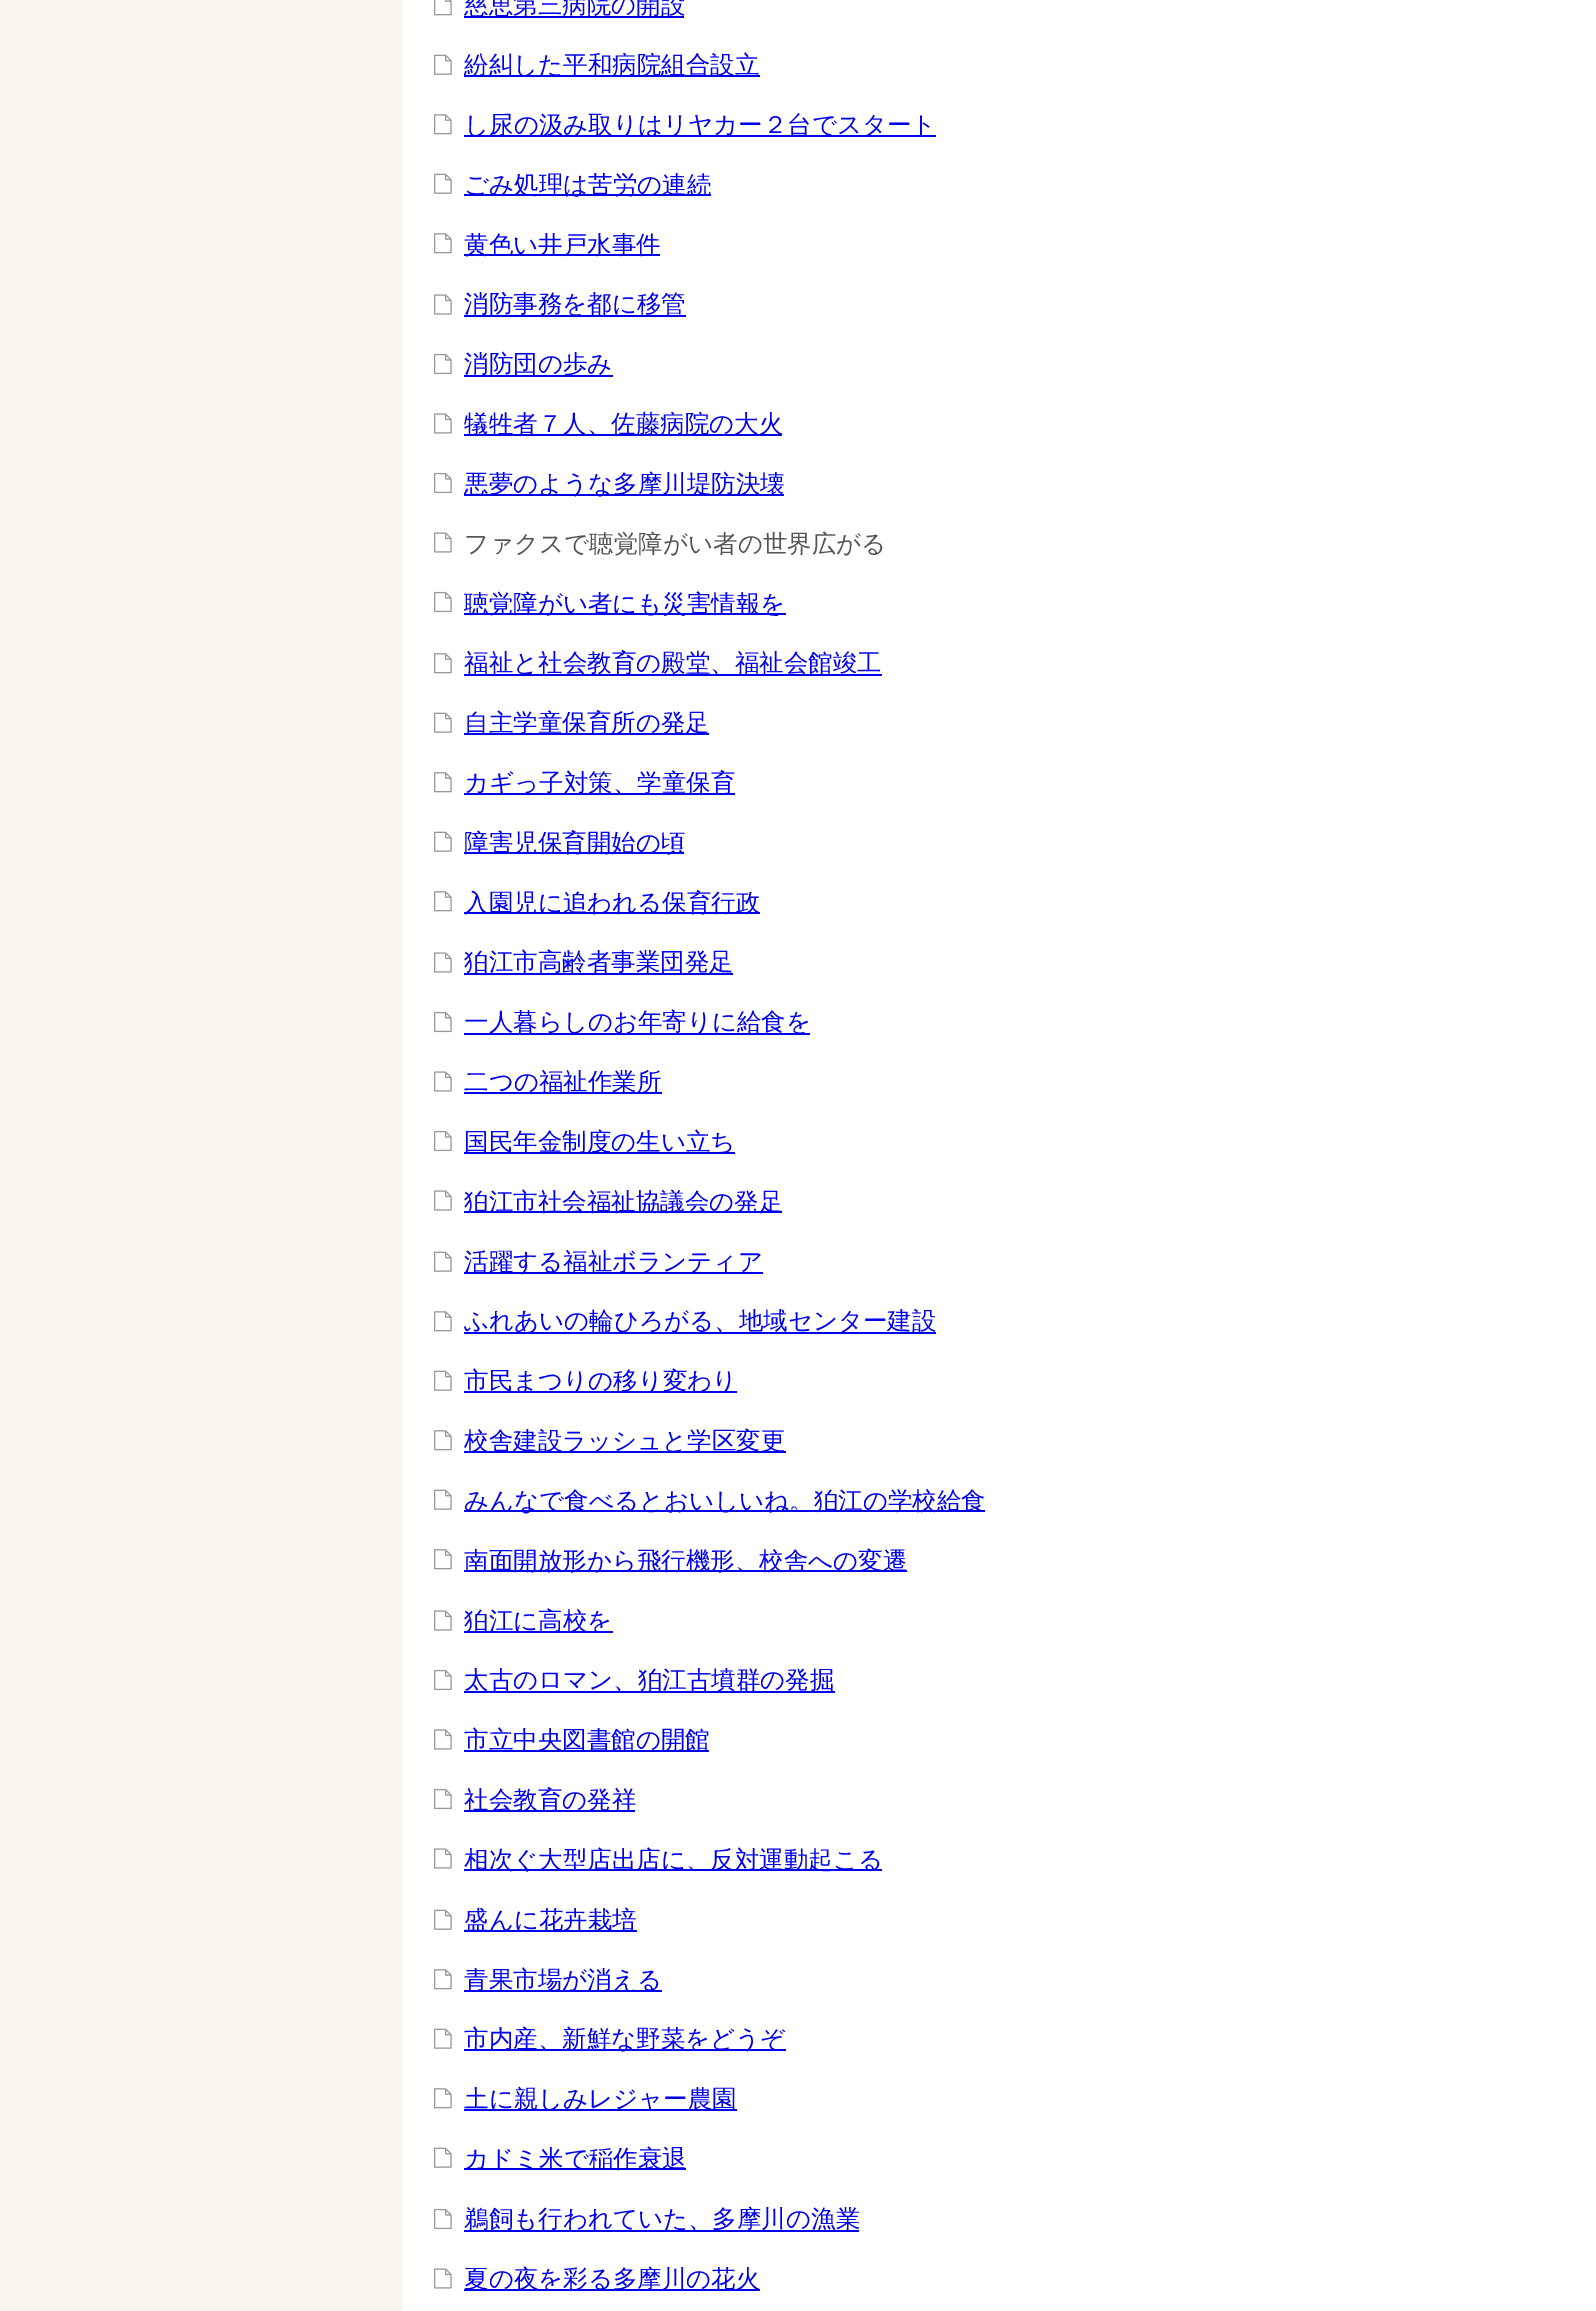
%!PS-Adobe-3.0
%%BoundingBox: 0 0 1596 2311
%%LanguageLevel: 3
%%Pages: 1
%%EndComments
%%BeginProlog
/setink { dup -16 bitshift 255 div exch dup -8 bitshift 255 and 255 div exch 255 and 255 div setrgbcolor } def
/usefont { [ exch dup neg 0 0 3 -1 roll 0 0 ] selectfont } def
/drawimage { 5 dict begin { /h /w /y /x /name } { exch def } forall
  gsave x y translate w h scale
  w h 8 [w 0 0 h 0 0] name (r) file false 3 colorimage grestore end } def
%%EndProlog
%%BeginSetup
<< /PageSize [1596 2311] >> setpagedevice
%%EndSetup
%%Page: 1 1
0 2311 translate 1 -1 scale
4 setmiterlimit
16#F8F5EE setink
0 0 1596 2311 rectfill
16#FFFFFF setink
403 0 1193 2311 rectfill
(img1.raw) 434 0 18 16 drawimage
16#0000EE setink
464 16 220 2 rectfill
/WenQuanYiZenHei-Medium 24.5 usefont
464 13 moveto (慈恵第三病院の開設) show
(img2.raw) 434 54 18 21 drawimage
464 75 296 2 rectfill
464 73 moveto (紛糾した平和病院組合設立) show
(img3.raw) 434 114 18 21 drawimage
464 135 472 2 rectfill
464 133 moveto (し尿の汲み取りはリヤカー２台でスタート) show
(img2.raw) 434 173 18 21 drawimage
464 194 247 2 rectfill
464 193 moveto (ごみ処理は苦労の連続) show
(img3.raw) 434 233 18 21 drawimage
464 254 196 2 rectfill
464 253 moveto (黄色い井戸水事件) show
(img4.raw) 434 294 18 21 drawimage
464 315 222 2 rectfill
464 312 moveto (消防事務を都に移管) show
(img5.raw) 434 353 18 22 drawimage
464 375 149 2 rectfill
464 372 moveto (消防団の歩み) show
(img4.raw) 434 413 18 21 drawimage
464 434 318 2 rectfill
464 432 moveto (犠牲者７人、佐藤病院の大火) show
(img5.raw) 434 472 18 22 drawimage
464 494 320 2 rectfill
464 492 moveto (悪夢のような多摩川堤防決壊) show
(img4.raw) 434 532 18 21 drawimage
16#555555 setink
464 552 moveto (ファクスで聴覚障がい者の世界広がる) show
(img5.raw) 434 591 18 22 drawimage
16#0000EE setink
464 613 322 2 rectfill
464 612 moveto (聴覚障がい者にも災害情報を) show
(img3.raw) 434 653 18 21 drawimage
464 674 418 2 rectfill
464 671 moveto (福祉と社会教育の殿堂、福祉会館竣工) show
(img2.raw) 434 712 18 21 drawimage
464 733 245 2 rectfill
464 731 moveto (自主学童保育所の発足) show
(img3.raw) 434 772 18 21 drawimage
464 793 271 2 rectfill
464 791 moveto (カギっ子対策、学童保育) show
(img2.raw) 434 831 18 21 drawimage
464 852 220 2 rectfill
464 851 moveto (障害児保育開始の頃) show
(img3.raw) 434 891 18 21 drawimage
464 912 296 2 rectfill
464 911 moveto (入園児に追われる保育行政) show
(img4.raw) 434 952 18 21 drawimage
464 973 269 2 rectfill
464 970 moveto (狛江市高齢者事業団発足) show
(img5.raw) 434 1011 18 22 drawimage
464 1033 346 2 rectfill
464 1030 moveto (一人暮らしのお年寄りに給食を) show
(img4.raw) 434 1071 18 21 drawimage
464 1092 198 2 rectfill
464 1090 moveto (二つの福祉作業所) show
(img5.raw) 434 1130 18 22 drawimage
464 1152 271 2 rectfill
464 1150 moveto (国民年金制度の生い立ち) show
(img4.raw) 434 1190 18 21 drawimage
464 1211 318 2 rectfill
464 1210 moveto (狛江市社会福祉協議会の発足) show
(img2.raw) 434 1251 18 21 drawimage
464 1272 299 2 rectfill
464 1270 moveto (活躍する福祉ボランティア) show
(img3.raw) 434 1311 18 21 drawimage
464 1332 472 2 rectfill
464 1329 moveto (ふれあいの輪ひろがる、地域センター建設) show
(img2.raw) 434 1370 18 21 drawimage
464 1391 273 2 rectfill
464 1389 moveto (市民まつりの移り変わり) show
(img3.raw) 434 1430 18 21 drawimage
464 1451 322 2 rectfill
464 1449 moveto (校舎建設ラッシュと学区変更) show
(img2.raw) 434 1489 18 21 drawimage
464 1510 521 2 rectfill
464 1509 moveto (みんなで食べるとおいしいね。狛江の学校給食) show
(img3.raw) 434 1549 18 21 drawimage
464 1570 443 2 rectfill
464 1569 moveto (南面開放形から飛行機形、校舎への変遷) show
(img4.raw) 434 1610 18 21 drawimage
464 1631 149 2 rectfill
464 1629 moveto (狛江に高校を) show
(img5.raw) 434 1669 18 22 drawimage
464 1691 371 2 rectfill
464 1688 moveto (太古のロマン、狛江古墳群の発掘) show
(img4.raw) 434 1729 18 21 drawimage
464 1750 245 2 rectfill
464 1748 moveto (市立中央図書館の開館) show
(img5.raw) 434 1788 18 22 drawimage
464 1810 171 2 rectfill
464 1808 moveto (社会教育の発祥) show
(img4.raw) 434 1848 18 21 drawimage
464 1869 418 2 rectfill
464 1868 moveto (相次ぐ大型店出店に、反対運動起こる) show
(img2.raw) 434 1909 18 21 drawimage
464 1930 173 2 rectfill
464 1928 moveto (盛んに花卉栽培) show
(img3.raw) 434 1969 18 21 drawimage
464 1990 198 2 rectfill
464 1988 moveto (青果市場が消える) show
(img2.raw) 434 2028 18 21 drawimage
464 2049 322 2 rectfill
464 2047 moveto (市内産、新鮮な野菜をどうぞ) show
(img3.raw) 434 2088 18 21 drawimage
464 2109 273 2 rectfill
464 2107 moveto (土に親しみレジャー農園) show
(img2.raw) 434 2147 18 21 drawimage
464 2168 222 2 rectfill
464 2167 moveto (カドミ米で稲作衰退) show
(img5.raw) 434 2208 18 22 drawimage
464 2230 395 2 rectfill
464 2227 moveto (鵜飼も行われていた、多摩川の漁業) show
(img4.raw) 434 2268 18 21 drawimage
464 2289 296 2 rectfill
464 2287 moveto (夏の夜を彩る多摩川の花火) show
showpage
%%EOF
